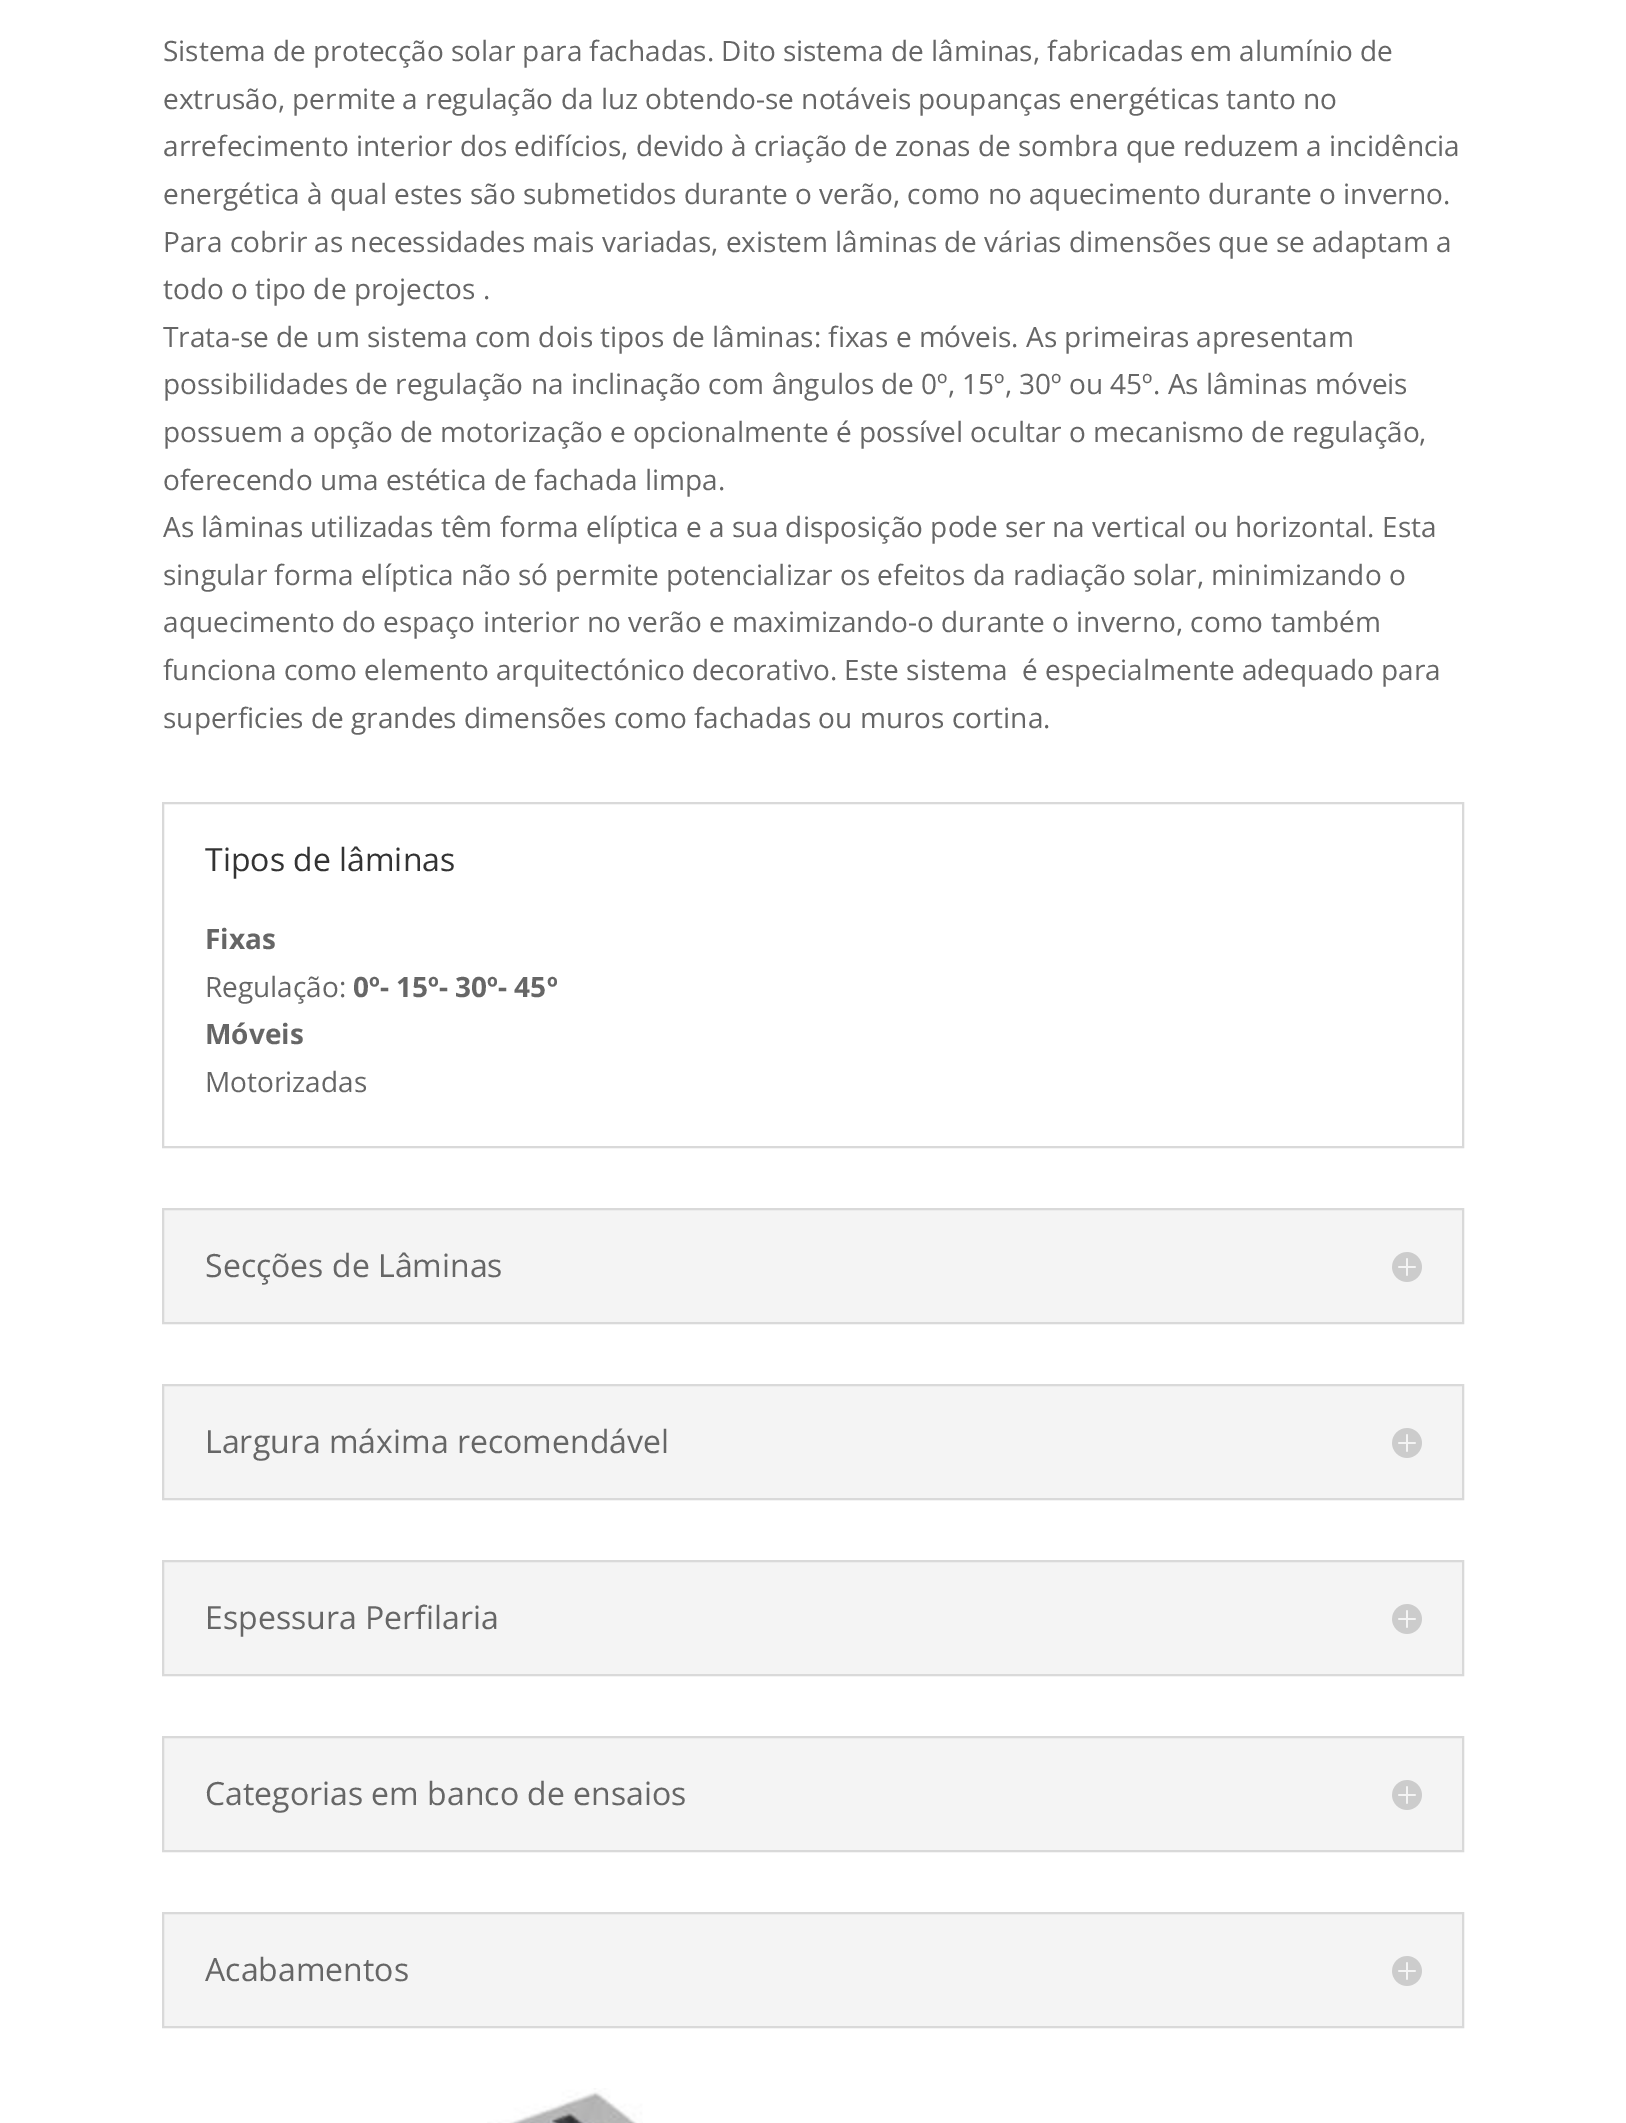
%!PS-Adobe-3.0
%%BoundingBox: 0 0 1626 2123
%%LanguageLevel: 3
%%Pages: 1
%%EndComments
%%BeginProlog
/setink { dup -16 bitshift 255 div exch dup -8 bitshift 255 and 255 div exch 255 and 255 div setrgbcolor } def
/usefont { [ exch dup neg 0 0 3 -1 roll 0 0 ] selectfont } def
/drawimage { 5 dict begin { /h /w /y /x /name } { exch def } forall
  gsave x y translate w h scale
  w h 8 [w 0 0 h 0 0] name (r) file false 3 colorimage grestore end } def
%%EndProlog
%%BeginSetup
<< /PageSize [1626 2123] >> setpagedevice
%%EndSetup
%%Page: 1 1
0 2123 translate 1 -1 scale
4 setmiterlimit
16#FFFFFF setink
0 0 1626 2123 rectfill
/OpenSans-Regular 28 usefont
16#666666 setink
[
    [(Sistema de protecção solar para fachadas. Dito sistema de lâminas, fabricadas em alumínio de) 163 61]
    [(extrusão, permite a regulação da luz obtendo-se notáveis poupanças energéticas tanto no) 163 109]
    [(arrefecimento interior dos edifícios, devido à criação de zonas de sombra que reduzem a incidência) 163 156]
    [(energética à qual estes são submetidos durante o verão, como no aquecimento durante o inverno.) 163 204]
    [(Para cobrir as necessidades mais variadas, existem lâminas de várias dimensões que se adaptam a) 163 252]
    [(todo o tipo de projectos .) 163 299]
    [(Trata-se de um sistema com dois tipos de lâminas: fixas e móveis. As primeiras apresentam) 163 347]
    [(possibilidades de regulação na inclinação com ângulos de 0º, 15º, 30º ou 45º. As lâminas móveis) 163 394]
    [(possuem a opção de motorização e opcionalmente é possível ocultar o mecanismo de regulação,) 163 442]
    [(oferecendo uma estética de fachada limpa.) 163 490]
    [(As lâminas utilizadas têm forma elíptica e a sua disposição pode ser na vertical ou horizontal. Esta) 163 537]
    [(singular forma elíptica não só permite potencializar os efeitos da radiação solar, minimizando o) 163 585]
    [(aquecimento do espaço interior no verão e maximizando-o durante o inverno, como também) 163 632]
    [(funciona como elemento arquitectónico decorativo. Este sistema  é especialmente adequado para) 163 680]
    [(superficies de grandes dimensões como fachadas ou muros cortina.) 163 728]
] { aload pop moveto show } forall
16#D9D9D9 setink
2 setlinewidth
163 803 1300 344 rectstroke
/OpenSans-Regular 32 usefont
16#333333 setink
205 871 moveto (Tipos de lâminas) show
/OpenSans-Bold 28 usefont
16#666666 setink
205 949 moveto (Fixas) show
/OpenSans-Regular 28 usefont
205 997 moveto (Regulação:) show
/OpenSans-Bold 28 usefont
353 997 moveto (0º- 15º- 30º- 45º) show
205 1044 moveto (Móveis) show
/OpenSans-Regular 28 usefont
205 1092 moveto (Motorizadas) show
16#F4F4F4 setink
163 1209 moveto 1463 1209 lineto 1463 1323 lineto 163 1323 lineto closepath gsave fill grestore
16#D9D9D9 setink
stroke
/OpenSans-Regular 32 usefont
16#666666 setink
205 1277 moveto (Secções de Lâminas) show
(img1.raw) 1392 1252 30 30 drawimage
16#F4F4F4 setink
163 1385 moveto 1463 1385 lineto 1463 1499 lineto 163 1499 lineto closepath gsave fill grestore
16#D9D9D9 setink
stroke
16#666666 setink
205 1453 moveto (Largura máxima recomendável) show
(img1.raw) 1392 1428 30 30 drawimage
16#F4F4F4 setink
163 1561 moveto 1463 1561 lineto 1463 1675 lineto 163 1675 lineto closepath gsave fill grestore
16#D9D9D9 setink
stroke
16#666666 setink
205 1629 moveto (Espessura Perfilaria) show
(img1.raw) 1392 1604 30 30 drawimage
16#F4F4F4 setink
163 1737 moveto 1463 1737 lineto 1463 1851 lineto 163 1851 lineto closepath gsave fill grestore
16#D9D9D9 setink
stroke
16#666666 setink
205 1805 moveto (Categorias em banco de ensaios) show
(img1.raw) 1392 1780 30 30 drawimage
16#F4F4F4 setink
163 1913 moveto 1463 1913 lineto 1463 2027 lineto 163 2027 lineto closepath gsave fill grestore
16#D9D9D9 setink
stroke
16#666666 setink
205 1981 moveto (Acabamentos) show
(img1.raw) 1392 1956 30 30 drawimage
(img2.raw) 487 2088 156 35 drawimage
showpage
%%EOF
